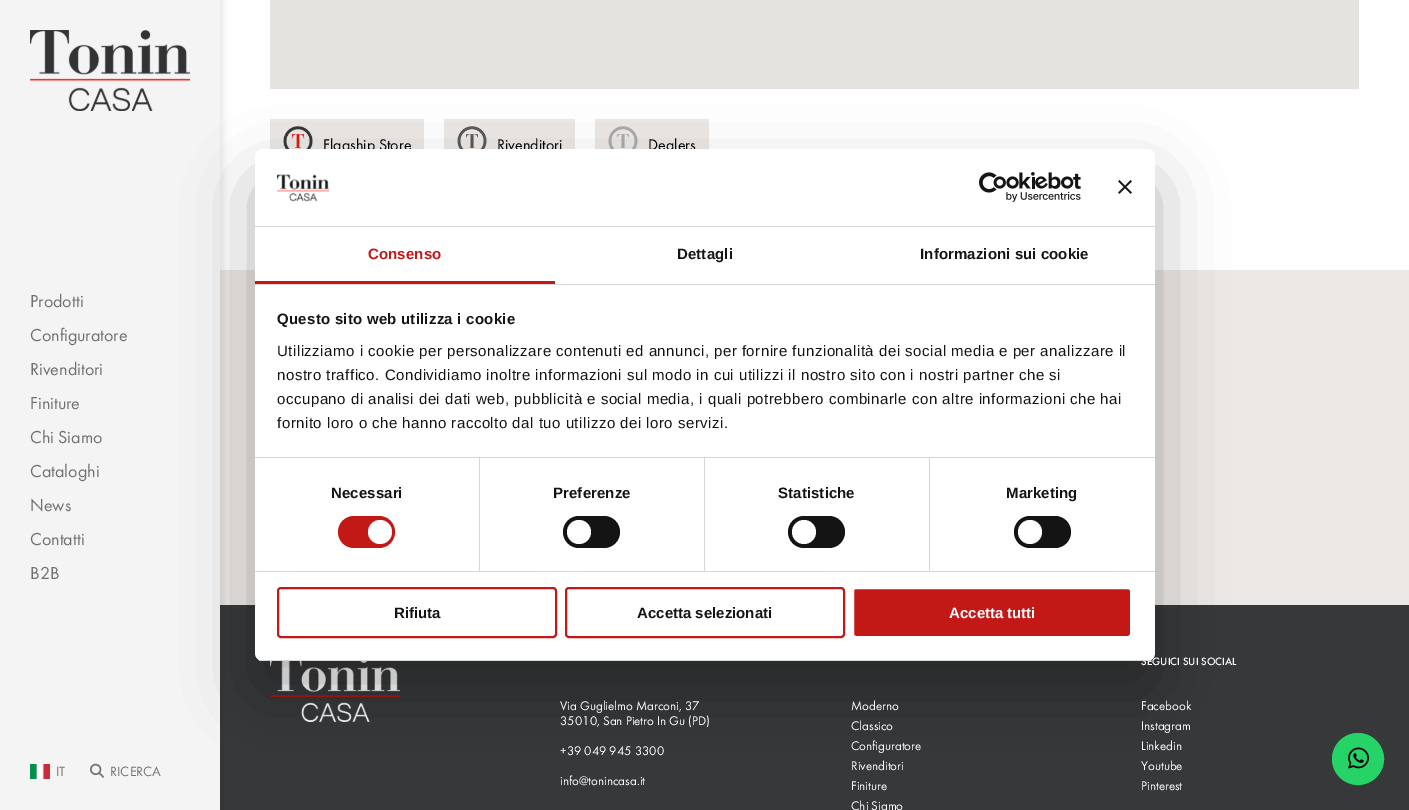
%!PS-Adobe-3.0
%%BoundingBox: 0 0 1409 810
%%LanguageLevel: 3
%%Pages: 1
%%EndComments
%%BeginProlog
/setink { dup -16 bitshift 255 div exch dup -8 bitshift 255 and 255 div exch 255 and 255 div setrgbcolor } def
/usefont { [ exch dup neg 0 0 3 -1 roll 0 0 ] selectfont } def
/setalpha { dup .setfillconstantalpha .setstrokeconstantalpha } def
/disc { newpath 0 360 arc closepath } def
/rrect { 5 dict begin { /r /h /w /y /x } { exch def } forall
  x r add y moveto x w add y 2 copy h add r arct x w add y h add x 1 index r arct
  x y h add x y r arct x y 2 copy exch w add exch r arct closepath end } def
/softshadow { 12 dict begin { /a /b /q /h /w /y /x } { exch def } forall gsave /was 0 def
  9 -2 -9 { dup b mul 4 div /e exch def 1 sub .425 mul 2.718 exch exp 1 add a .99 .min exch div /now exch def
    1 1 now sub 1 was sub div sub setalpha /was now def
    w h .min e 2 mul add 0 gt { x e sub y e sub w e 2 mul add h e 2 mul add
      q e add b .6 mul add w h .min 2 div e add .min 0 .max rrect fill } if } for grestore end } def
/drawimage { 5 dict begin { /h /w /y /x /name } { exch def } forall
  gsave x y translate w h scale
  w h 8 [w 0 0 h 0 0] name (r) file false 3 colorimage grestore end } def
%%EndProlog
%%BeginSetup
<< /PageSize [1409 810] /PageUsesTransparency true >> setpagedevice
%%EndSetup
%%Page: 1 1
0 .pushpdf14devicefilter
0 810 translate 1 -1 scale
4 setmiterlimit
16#FFFFFF setink
0 0 1409 810 rectfill
16#E5E3DF setink
270 0 1089 89 rectfill
16#ECE8E5 setink
270 119 154 30 rectfill
(img1.raw) 283 126 30 23 drawimage
/FuturaPT-Regular 16 usefont
16#000000 setink
323 150 moveto (Flagship Store) show
16#ECE8E5 setink
444 119 131 30 rectfill
(img2.raw) 457 126 30 23 drawimage
16#000000 setink
497 150 moveto (Rivenditori) show
16#ECE8E5 setink
595 119 114 30 rectfill
(img3.raw) 608 126 30 23 drawimage
16#000000 setink
648 150 moveto (Dealers) show
16#ECE8E5 setink
220 270 1189 335 rectfill
16#36383A setink
220 605 1189 205 rectfill
16#000000 setink
-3 -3 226 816 0 4 0.1 softshadow
16#F5F4F4 setink
0 0 220 810 rectfill
(img4.raw) 30 30 160 81 drawimage
/FuturaPT-Regular 18 usefont
16#707070 setink
[
    [(Prodotti) 30 307]
    [(Configuratore) 30 341]
    [(Rivenditori) 30 375]
    [(Finiture) 30 409]
    [(Chi Siamo) 30 443]
    [(Cataloghi) 30 477]
    [(News) 30 511]
    [(Contatti) 30 545]
    [(B2B) 30 579]
] { aload pop moveto show } forall
(img5.raw) 30 764 20 15 drawimage
/FuturaPT-Regular 14 usefont
56 776 moveto (IT) show
(img6.raw) 90 763 14 15 drawimage
110 776 moveto (RICERCA) show
(img10.raw) 270 661 130 61 drawimage
16#000000 setink
255 181 900 512 8 34 0.3 softshadow
16#FFFFFF setink
255 149 900 512 8 rrect fill
16#D6D6D6 setink
255 226 900 1 rectfill
(img7.raw) 277 174 52 28 drawimage
(img8.raw) 979 172 102 30 drawimage
(img9.raw) 1118 180 14 14 drawimage
255 284 900 1 rectfill
16#C31916 setink
255 281 300 3 rectfill
/LiberationSans-Bold 15 usefont
368 259 moveto 0.1 0 (Consenso) ashow
16#141414 setink
677 259 moveto 0.1 0 (Dettagli) ashow
920 259 moveto 0.1 0 (Informazioni sui cookie) ashow
16#D6D6D6 setink
255 457 900 1 rectfill
16#141414 setink
277 324 moveto 0.25 0 (Questo sito web utilizza i cookie) ashow
/LiberationSans-Regular 15 usefont
277 356 moveto 0.5 0 (Utilizziamo i cookie per personalizzare contenuti ed annunci, per fornire funzionalità dei social media e per analizzare il) ashow
277 380 moveto 0.5 0 (nostro traffico. Condividiamo inoltre informazioni sul modo in cui utilizzi il nostro sito con i nostri partner che si) ashow
277 404 moveto 0.5 0 (occupano di analisi dei dati web, pubblicità e social media, i quali potrebbero combinarle con altre informazioni che hai) ashow
277 428 moveto 0.5 0 (fornito loro o che hanno raccolto dal tuo utilizzo dei loro servizi.) ashow
16#D6D6D6 setink
255 571 900 1 rectfill
479 458 1 113 rectfill
/LiberationSans-Bold 15 usefont
16#141414 setink
331 498 moveto 0.1 0 (Necessari) ashow
16#C31916 setink
338 516 57 32 16 rrect fill
16#FFFFFF setink
380 532 12 disc fill
16#D6D6D6 setink
704 458 1 113 rectfill
16#141414 setink
553 498 moveto 0.1 0 (Preferenze) ashow
563 516 57 32 16 rrect fill
16#FFFFFF setink
579 532 12 disc fill
16#D6D6D6 setink
929 458 1 113 rectfill
16#141414 setink
778 498 moveto 0.1 0 (Statistiche) ashow
788 516 57 32 16 rrect fill
16#FFFFFF setink
804 532 12 disc fill
16#141414 setink
1006 498 moveto 0.1 0 (Marketing) ashow
1014 516 57 32 16 rrect fill
16#FFFFFF setink
1030 532 12 disc fill
/FuturaPT-Medium 11 usefont
1141 665 moveto (SEGUICI SUI SOCIAL) show
gsave
255 149 900 512 8 rrect clip newpath
16#D6D6D6 setink
255 660 900 1 rectfill
grestore
16#C31916 setink
2 setlinewidth
278 588 278 49 3 rrect stroke
/LiberationSans-Bold 15 usefont
16#141414 setink
394 618 moveto (Rifiuta) show
16#C31916 setink
566 588 278 49 3 rrect stroke
16#141414 setink
637 618 moveto (Accetta selezionati) show
16#C31916 setink
853 588 278 49 3 rrect gsave fill grestore
16#FFFFFF setink
stroke
949 618 moveto (Accetta tutti) show
/FuturaPT-Regular 13 usefont
[
    [(Facebook) 1141 710]
    [(Instagram) 1141 730]
    [(Linkedin) 1141 750]
    [(Youtube) 1141 770]
    [(Pinterest) 1141 790]
    [(Via Guglielmo Marconi, 37) 560 710]
    [(35010, San Pietro In Gu \(PD\)) 560 725]
    [(+39 049 945 3300) 560 755]
    [(info@tonincasa.it) 560 785]
    [(Moderno) 851 710]
    [(Classico) 851 730]
    [(Configuratore) 851 750]
    [(Rivenditori) 851 770]
    [(Finiture) 851 790]
    [(Chi Siamo) 851 810]
] { aload pop moveto show } forall
16#25D366 setink
1358 759 25.5 disc gsave fill grestore
1 setlinewidth
stroke
(img11.raw) 1348 747 21 22 drawimage
.poppdf14devicefilter showpage
%%EOF
